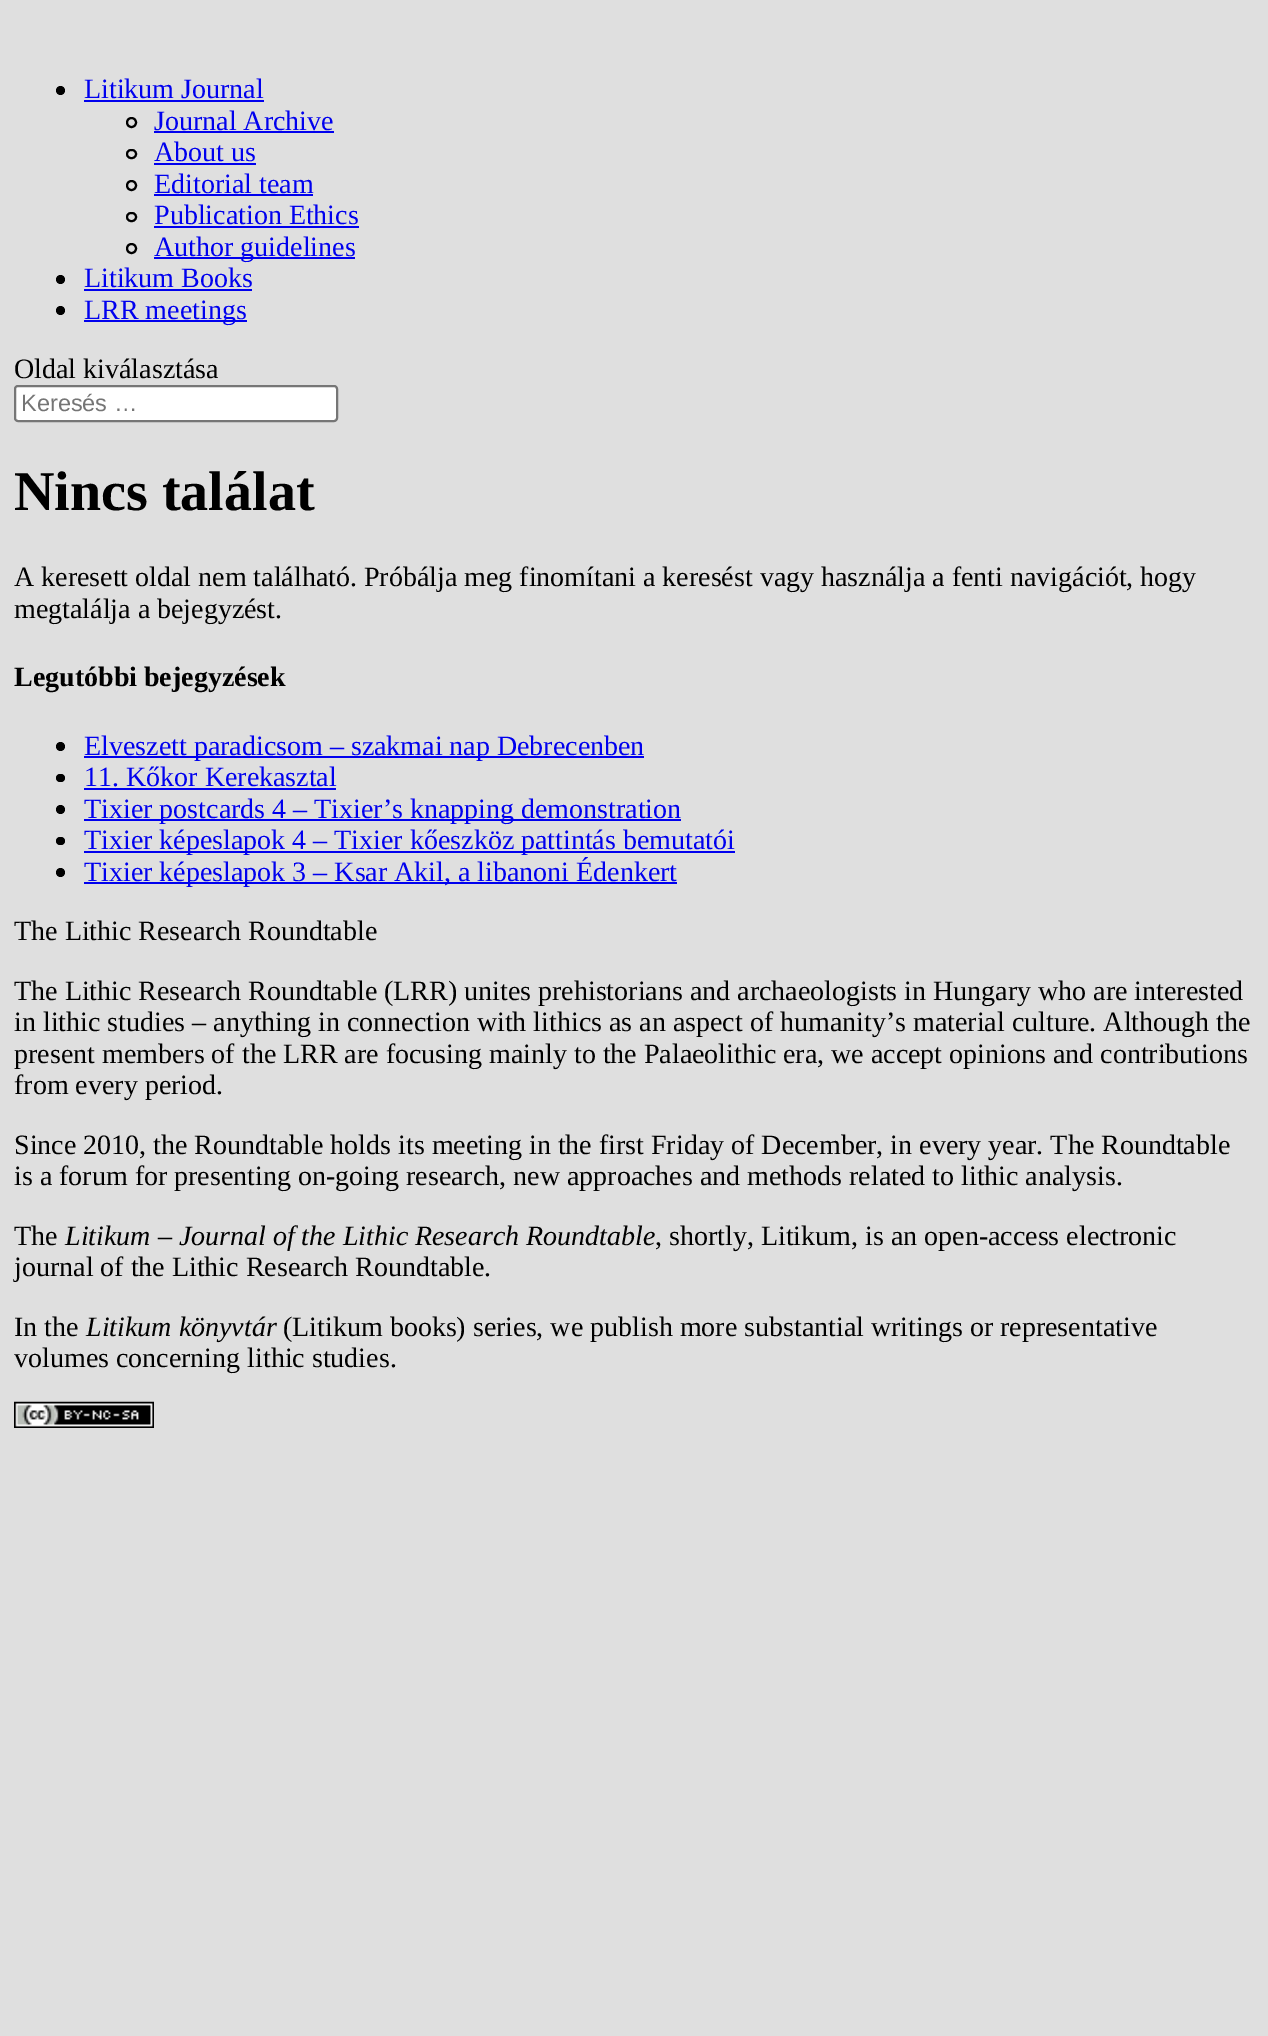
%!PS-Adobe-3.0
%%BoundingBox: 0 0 1268 2036
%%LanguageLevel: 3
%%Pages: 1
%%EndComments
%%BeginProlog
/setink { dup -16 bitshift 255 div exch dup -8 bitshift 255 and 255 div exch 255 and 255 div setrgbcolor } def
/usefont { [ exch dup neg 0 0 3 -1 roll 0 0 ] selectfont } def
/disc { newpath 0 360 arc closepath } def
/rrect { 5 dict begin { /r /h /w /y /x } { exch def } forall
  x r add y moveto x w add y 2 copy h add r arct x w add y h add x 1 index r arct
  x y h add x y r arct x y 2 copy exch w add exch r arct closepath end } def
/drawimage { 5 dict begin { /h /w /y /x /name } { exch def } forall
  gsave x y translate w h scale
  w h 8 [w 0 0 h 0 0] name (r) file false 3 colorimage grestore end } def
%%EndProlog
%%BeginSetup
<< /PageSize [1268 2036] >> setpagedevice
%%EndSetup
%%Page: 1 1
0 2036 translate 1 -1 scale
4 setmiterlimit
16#DFDFDF setink
0 0 1268 2036 rectfill
16#000000 setink
60.5 90.5 4.5 disc fill
/LiberationSerif-Regular 28 usefont
16#0000EE setink
84 98 moveto (Litikum Journal) show
84 100 180 2 rectfill
16#000000 setink
2 setlinewidth
131.5 122.5 4.5 disc stroke
16#0000EE setink
154 130 moveto (Journal Archive) show
154 131 180 2 rectfill
16#000000 setink
127 150 9 8 4 rrect stroke
16#0000EE setink
154 161 moveto (About us) show
154 163 102 2 rectfill
16#000000 setink
131.5 185.5 4.5 disc stroke
16#0000EE setink
154 193 moveto (Editorial team) show
154 194 159 2 rectfill
16#000000 setink
127 213 9 8 4 rrect stroke
16#0000EE setink
154 224 moveto (Publication Ethics) show
154 226 205 2 rectfill
16#000000 setink
131.5 248.5 4.5 disc stroke
16#0000EE setink
154 257 201 2 rectfill
154 256 moveto (Author guidelines) show
16#000000 setink
60.5 279.5 4.5 disc fill
16#0000EE setink
84 287 moveto (Litikum Books) show
84 289 168 2 rectfill
16#000000 setink
60.5 310.5 4.5 disc fill
16#0000EE setink
84 320 163 2 rectfill
84 319 moveto (LRR meetings) show
16#000000 setink
14 378 moveto (Oldal kiválasztása) show
16#FFFFFF setink
15 386 322 35 3 rrect gsave fill grestore
16#767676 setink
stroke
/LiberationSans-Regular 23.5 usefont
16#757575 setink
21 411 moveto (Keresés …) show
/LiberationSerif-Bold 56 usefont
16#000000 setink
14 510 moveto (Nincs találat) show
/LiberationSerif-Regular 28 usefont
14 586 moveto (A keresett oldal nem található. Próbálja meg finomítani a keresést vagy használja a fenti navigációt, hogy) show
14 618 moveto (megtalálja a bejegyzést.) show
/LiberationSerif-Bold 28 usefont
14 686 moveto (Legutóbbi bejegyzések) show
60.5 746.5 4.5 disc fill
16#0000EE setink
84 756 560 2 rectfill
/LiberationSerif-Regular 28 usefont
84 755 moveto (Elveszett paradicsom – szakmai nap Debrecenben) show
16#000000 setink
56 774 9 8 4 rrect fill
16#0000EE setink
84 786 moveto (11. Kőkor Kerekasztal) show
84 788 252 2 rectfill
16#000000 setink
60.5 809.5 4.5 disc fill
16#0000EE setink
84 819 597 2 rectfill
84 818 moveto (Tixier postcards 4 – Tixier’s knapping demonstration) show
16#000000 setink
56 837 9 8 4 rrect fill
16#0000EE setink
84 851 651 2 rectfill
84 849 moveto (Tixier képeslapok 4 – Tixier kőeszköz pattintás bemutatói) show
16#000000 setink
60.5 872.5 4.5 disc fill
16#0000EE setink
84 882 593 2 rectfill
84 881 moveto (Tixier képeslapok 3 – Ksar Akil, a libanoni Édenkert) show
16#000000 setink
[
    [(The Lithic Research Roundtable) 14 940]
    [(The Lithic Research Roundtable \(LRR\) unites prehistorians and archaeologists in Hungary who are interested) 14 1000]
    [(in lithic studies – anything in connection with lithics as an aspect of humanity’s material culture. Although the) 14 1031]
    [(present members of the LRR are focusing mainly to the Palaeolithic era, we accept opinions and contributions) 14 1063]
    [(from every period.) 14 1094]
    [(Since 2010, the Roundtable holds its meeting in the first Friday of December, in every year. The Roundtable) 14 1154]
    [(is a forum for presenting on-going research, new approaches and methods related to lithic analysis.) 14 1185]
    [(The) 14 1245]
] { aload pop moveto show } forall
/LiberationSerif-Italic 28 usefont
65 1245 moveto (Litikum – Journal of the Lithic Research Roundtable) show
/LiberationSerif-Regular 28 usefont
[
    [(, shortly, Litikum, is an open-access electronic) 655 1245]
    [(journal of the Lithic Research Roundtable.) 14 1276]
    [(In the) 14 1336]
] { aload pop moveto show } forall
/LiberationSerif-Italic 28 usefont
86 1336 moveto (Litikum könyvtár) show
/LiberationSerif-Regular 28 usefont
283 1336 moveto (\(Litikum books\) series, we publish more substantial writings or representative) show
14 1367 moveto (volumes concerning lithic studies.) show
(img1.raw) 14 1401 140 27 drawimage
showpage
%%EOF
